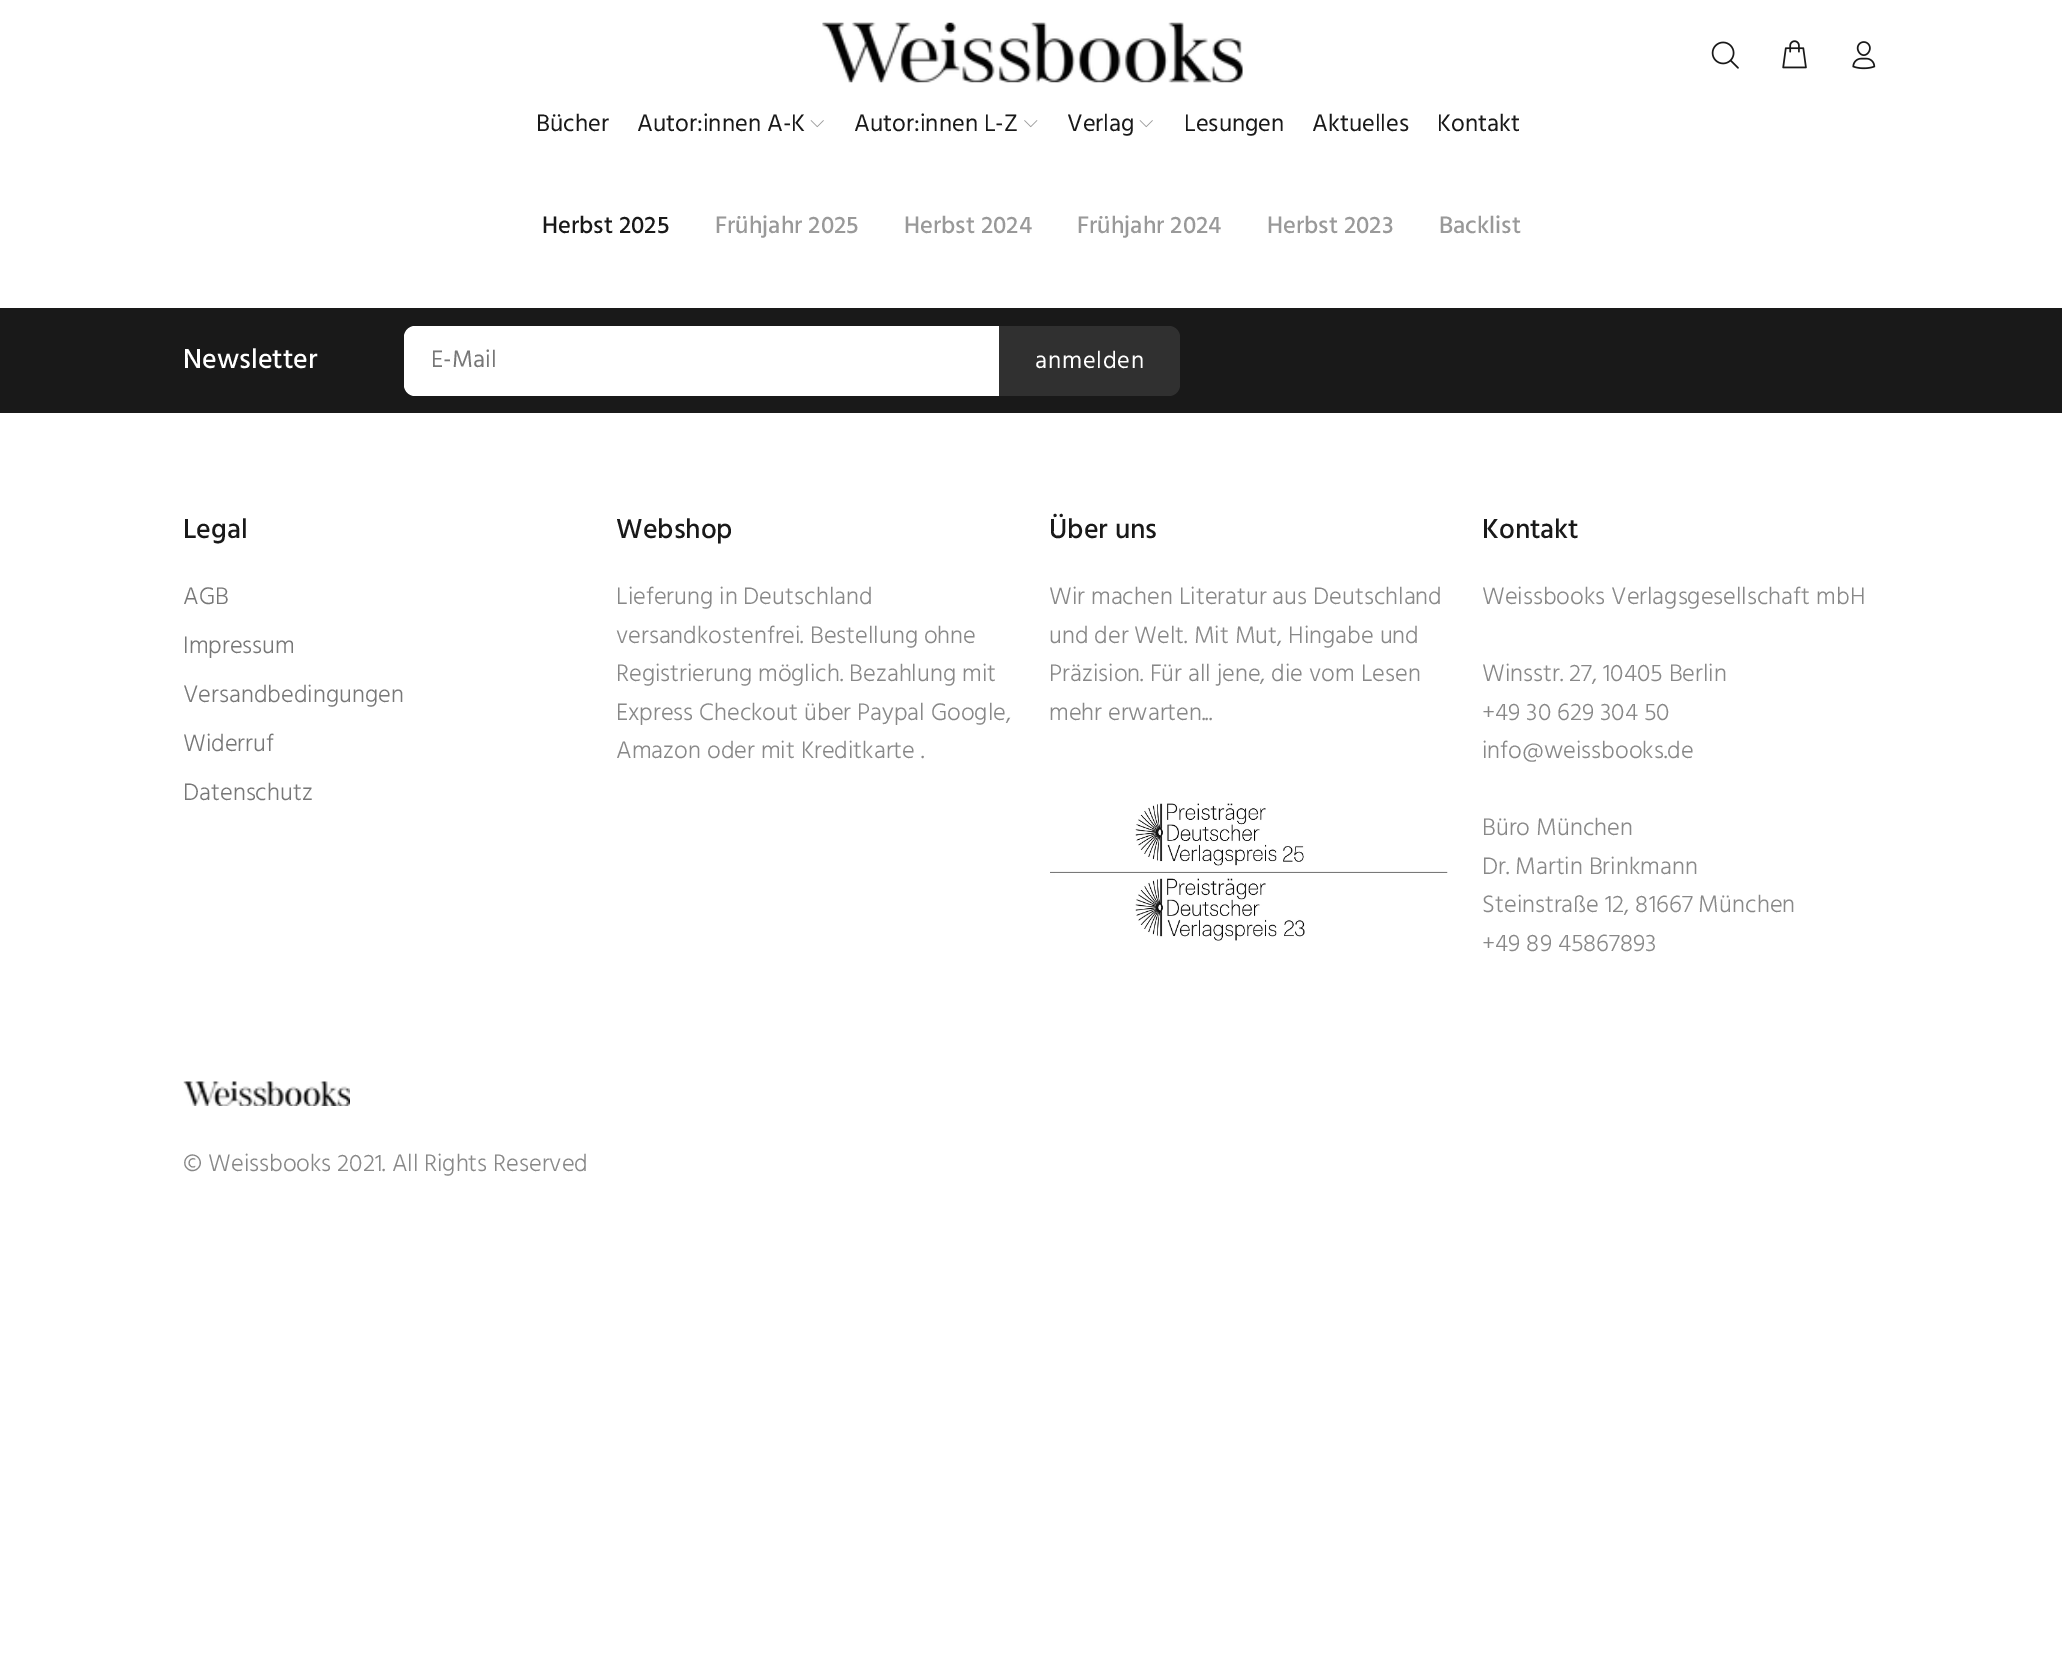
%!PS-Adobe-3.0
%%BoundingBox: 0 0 2062 1672
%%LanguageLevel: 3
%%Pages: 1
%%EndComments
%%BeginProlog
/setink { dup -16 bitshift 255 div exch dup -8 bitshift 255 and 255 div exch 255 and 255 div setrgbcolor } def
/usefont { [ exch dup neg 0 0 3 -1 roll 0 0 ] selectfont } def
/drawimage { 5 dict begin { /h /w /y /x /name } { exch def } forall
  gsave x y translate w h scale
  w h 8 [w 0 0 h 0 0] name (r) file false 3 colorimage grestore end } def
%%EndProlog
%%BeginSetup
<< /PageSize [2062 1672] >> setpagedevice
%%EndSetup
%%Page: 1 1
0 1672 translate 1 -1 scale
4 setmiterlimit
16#FFFFFF setink
0 0 2062 1672 rectfill
(img1.raw) 822 22 421 61 drawimage
(img2.raw) 1711 41 28 28 drawimage
(img3.raw) 1782 40 25 29 drawimage
(img4.raw) 1852 41 24 29 drawimage
/Hind-Regular 24.5 usefont
16#191919 setink
536 131 moveto (Bücher) show
637 131 moveto (Autor:innen A-K) show
(img5.raw) 810 120 14 8 drawimage
854 131 moveto (Autor:innen L-Z) show
(img6.raw) 1024 120 14 8 drawimage
1067 131 moveto (Verlag) show
(img5.raw) 1139 120 14 8 drawimage
[
    [(Lesungen) 1184 131]
    [(Aktuelles) 1312 131]
    [(Kontakt) 1437 131]
] { aload pop moveto show } forall
/Hind-Medium 24.5 usefont
542 233 moveto (Herbst 2025) show
16#999999 setink
[
    [(Frühjahr 2025) 715 233]
    [(Herbst 2024) 904 233]
    [(Frühjahr 2024) 1077 233]
    [(Herbst 2023) 1267 233]
    [(Backlist) 1439 233]
] { aload pop moveto show } forall
16#191919 setink
0 308 2062 105 rectfill
/Hind-Medium 28 usefont
16#FFFFFF setink
183 368 moveto (Newsletter) show
415 326 moveto 999 326 lineto 999 396 lineto 415 396 lineto 409 396 404 391 404 385 curveto 404 337 lineto 404 331 409 326 415 326 curveto closepath fill
/Hind-Regular 24.5 usefont
16#777777 setink
431 367 moveto (E-Mail) show
16#303030 setink
999 326 moveto 1169 326 lineto 1175 326 1180 331 1180 337 curveto 1180 385 lineto 1180 391 1175 396 1169 396 curveto 999 396 lineto closepath fill
16#FFFFFF setink
1035 368 moveto 0.75 0 (anmelden) ashow
/Hind-Medium 28 usefont
16#191919 setink
183 538 moveto (Legal) show
/Hind-Light 24.5 usefont
16#777777 setink
[
    [(AGB) 183 604]
    [(Impressum) 183 653]
    [(Versandbedingungen) 183 702]
    [(Widerruf) 183 751]
    [(Datenschutz) 183 800]
] { aload pop moveto show } forall
/Hind-Medium 28 usefont
16#191919 setink
616 538 moveto (Webshop) show
/Hind-Light 24.5 usefont
16#888888 setink
[
    [(Lieferung in Deutschland) 616 604]
    [(versandkostenfrei. Bestellung ohne) 616 643]
    [(Registrierung möglich. Bezahlung mit) 616 681]
    [(Express Checkout über Paypal Google,) 616 720]
    [(Amazon oder mit Kreditkarte .) 616 758]
] { aload pop moveto show } forall
/Hind-Medium 28 usefont
16#191919 setink
1049 538 moveto (Über uns) show
/Hind-Light 24.5 usefont
16#888888 setink
[
    [(Wir machen Literatur aus Deutschland) 1049 604]
    [(und der Welt. Mit Mut, Hingabe und) 1049 643]
    [(Präzision. Für all jene, die vom Lesen) 1049 681]
    [(mehr erwarten...) 1049 720]
] { aload pop moveto show } forall
(img7.raw) 1050 803 398 138 drawimage
/Hind-Medium 28 usefont
16#191919 setink
1482 538 moveto (Kontakt) show
/Hind-Light 24.5 usefont
16#888888 setink
[
    [(Weissbooks Verlagsgesellschaft mbH) 1482 604]
    [(Winsstr. 27, 10405 Berlin) 1482 681]
    [(+49 30 629 304 50) 1482 720]
    [(info@weissbooks.de) 1482 758]
    [(Büro München) 1482 835]
    [(Dr. Martin Brinkmann) 1482 874]
    [(Steinstraße 12, 81667 München) 1482 912]
    [(+49 89 45867893) 1482 951]
] { aload pop moveto show } forall
(img8.raw) 183 1081 167 25 drawimage
183 1171 moveto (© Weissbooks 2021. All Rights Reserved) show
showpage
%%EOF
